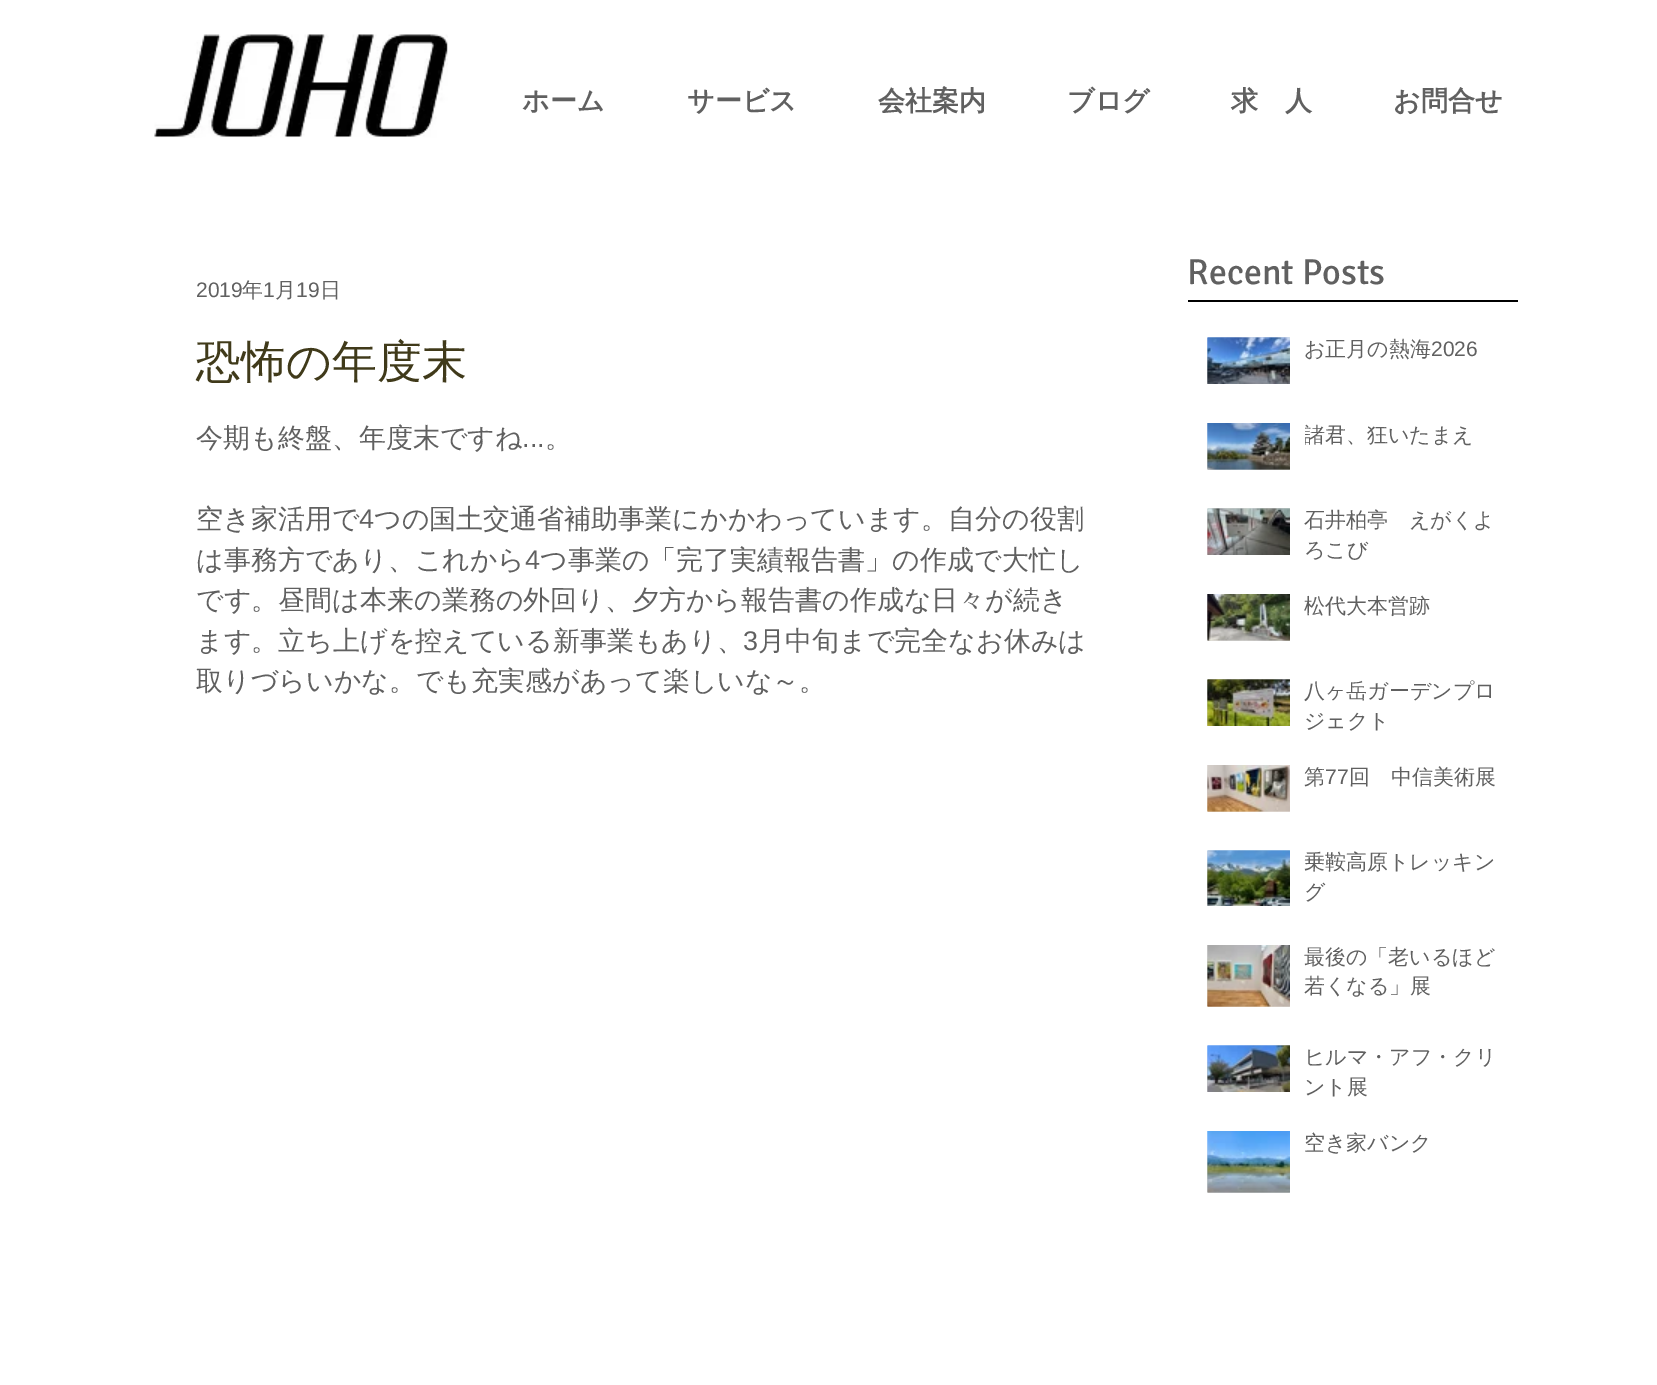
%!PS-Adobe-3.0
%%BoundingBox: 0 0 1657 1385
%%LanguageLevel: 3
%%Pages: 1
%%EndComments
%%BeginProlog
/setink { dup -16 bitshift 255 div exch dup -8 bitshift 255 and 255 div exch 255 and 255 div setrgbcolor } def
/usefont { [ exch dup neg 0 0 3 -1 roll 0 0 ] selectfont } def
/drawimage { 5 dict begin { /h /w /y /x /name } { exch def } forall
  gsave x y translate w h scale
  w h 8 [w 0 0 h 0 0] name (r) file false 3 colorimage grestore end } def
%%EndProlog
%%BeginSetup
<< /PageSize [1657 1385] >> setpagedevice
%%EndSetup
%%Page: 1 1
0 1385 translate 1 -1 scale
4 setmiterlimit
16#FFFFFF setink
0 0 1657 1385 rectfill
(img1.raw) 154 34 294 104 drawimage
/WenQuanYiZenHei-Bold 27 usefont
16#606060 setink
[
    [(ホーム) 522 110]
    [(サービス) 687 110]
    [(会社案内) 878 110]
    [(ブログ) 1067 110]
    [(求　人) 1231 110]
    [(お問合せ) 1393 110]
] { aload pop moveto show } forall
/Signika-Regular 36 usefont
1187 284 moveto (Recent Posts) show
/LiberationSans-Regular 21 usefont
196 297 moveto (2019) show
/WenQuanYiZenHei-Medium 21 usefont
242 297 moveto (年) show
/LiberationSans-Regular 21 usefont
263 297 moveto (1) show
/WenQuanYiZenHei-Medium 21 usefont
275 297 moveto (月) show
/LiberationSans-Regular 21 usefont
296 297 moveto (19) show
/WenQuanYiZenHei-Medium 21 usefont
320 297 moveto (日) show
/WenQuanYiZenHei-Medium 45 usefont
16#403A1A setink
196 377 moveto (恐怖の年度末) show
/WenQuanYiZenHei-Medium 27 usefont
16#606060 setink
196 447 moveto (今期も終盤、年度末ですね) show
/LiberationSans-Regular 27 usefont
522 447 moveto (...) show
/WenQuanYiZenHei-Medium 27 usefont
545 447 moveto (。) show
196 528 moveto (空き家活用で) show
/LiberationSans-Regular 27 usefont
359 528 moveto (4) show
/WenQuanYiZenHei-Medium 27 usefont
374 528 moveto (つの国土交通省補助事業にかかわっています。自分の役割) show
196 569 moveto (は事務方であり、これから) show
/LiberationSans-Regular 27 usefont
525 569 moveto (4) show
/WenQuanYiZenHei-Medium 27 usefont
[
    [(つ事業の「完了実績報告書」の作成で大忙し) 540 569]
    [(です。昼間は本来の業務の外回り、夕方から報告書の作成な日々が続き) 196 609]
    [(ます。立ち上げを控えている新事業もあり、) 196 650]
] { aload pop moveto show } forall
/LiberationSans-Regular 27 usefont
743 650 moveto (3) show
/WenQuanYiZenHei-Medium 27 usefont
758 650 moveto (月中旬まで完全なお休みは) show
196 690 moveto (取りづらいかな。でも充実感があって楽しいな～。) show
16#000000 setink
1188 300 330 2 rectfill
(img2.raw) 1207 337 83 47 drawimage
(img3.raw) 1207 337 83 47 drawimage
/WenQuanYiZenHei-Medium 21 usefont
16#606060 setink
1304 356 moveto (お正月の熱海) show
/LiberationSans-Regular 21 usefont
1431 356 moveto (2026) show
(img4.raw) 1207 423 83 47 drawimage
(img5.raw) 1207 423 83 47 drawimage
gsave
1305 422 200 28 rectclip
/WenQuanYiZenHei-Medium 21 usefont
1304 442 moveto (諸君、狂いたまえ) show
grestore
(img6.raw) 1207 508 83 47 drawimage
(img7.raw) 1207 508 83 47 drawimage
/WenQuanYiZenHei-Medium 21 usefont
1304 527 moveto (石井柏亭　えがくよ) show
1304 557 moveto (ろこび) show
(img8.raw) 1207 594 83 47 drawimage
(img9.raw) 1207 594 83 47 drawimage
1304 613 moveto (松代大本営跡) show
(img10.raw) 1207 679 83 47 drawimage
(img11.raw) 1207 679 83 47 drawimage
1304 698 moveto (八ヶ岳ガーデンプロ) show
1304 728 moveto (ジェクト) show
(img12.raw) 1207 765 83 47 drawimage
(img13.raw) 1207 765 83 47 drawimage
1304 784 moveto (第) show
/LiberationSans-Regular 21 usefont
1325 784 moveto (77) show
/WenQuanYiZenHei-Medium 21 usefont
1349 784 moveto (回　中信美術展) show
(img14.raw) 1207 850 83 56 drawimage
(img15.raw) 1207 850 83 56 drawimage
1304 869 moveto (乗鞍高原トレッキン) show
1304 899 moveto (グ) show
(img16.raw) 1207 945 83 62 drawimage
(img17.raw) 1207 945 83 62 drawimage
1304 964 moveto (最後の「老いるほど) show
1304 993 moveto (若くなる」展) show
(img18.raw) 1207 1045 83 47 drawimage
(img19.raw) 1207 1045 83 47 drawimage
1304 1064 moveto (ヒルマ・アフ・クリ) show
1304 1094 moveto (ント展) show
(img20.raw) 1207 1131 83 62 drawimage
(img21.raw) 1207 1131 83 62 drawimage
1304 1150 moveto (空き家バンク) show
showpage
%%EOF
